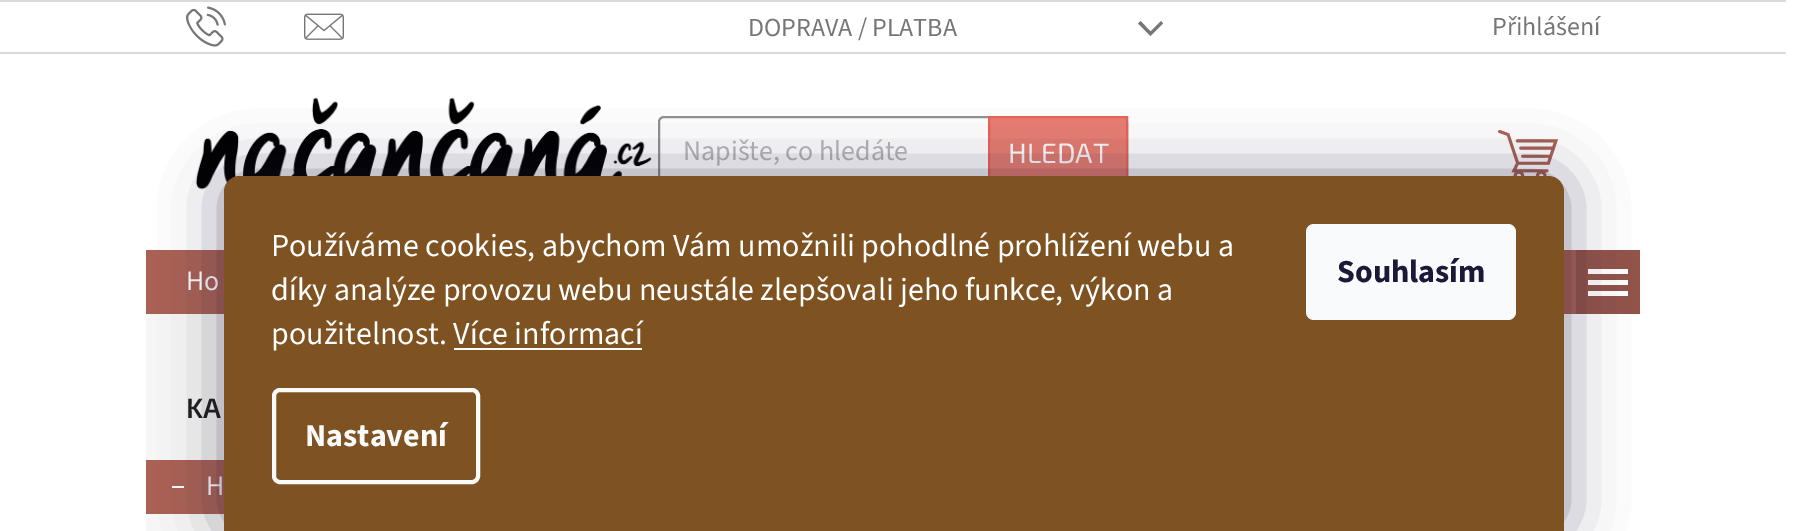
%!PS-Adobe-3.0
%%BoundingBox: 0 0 1815 531
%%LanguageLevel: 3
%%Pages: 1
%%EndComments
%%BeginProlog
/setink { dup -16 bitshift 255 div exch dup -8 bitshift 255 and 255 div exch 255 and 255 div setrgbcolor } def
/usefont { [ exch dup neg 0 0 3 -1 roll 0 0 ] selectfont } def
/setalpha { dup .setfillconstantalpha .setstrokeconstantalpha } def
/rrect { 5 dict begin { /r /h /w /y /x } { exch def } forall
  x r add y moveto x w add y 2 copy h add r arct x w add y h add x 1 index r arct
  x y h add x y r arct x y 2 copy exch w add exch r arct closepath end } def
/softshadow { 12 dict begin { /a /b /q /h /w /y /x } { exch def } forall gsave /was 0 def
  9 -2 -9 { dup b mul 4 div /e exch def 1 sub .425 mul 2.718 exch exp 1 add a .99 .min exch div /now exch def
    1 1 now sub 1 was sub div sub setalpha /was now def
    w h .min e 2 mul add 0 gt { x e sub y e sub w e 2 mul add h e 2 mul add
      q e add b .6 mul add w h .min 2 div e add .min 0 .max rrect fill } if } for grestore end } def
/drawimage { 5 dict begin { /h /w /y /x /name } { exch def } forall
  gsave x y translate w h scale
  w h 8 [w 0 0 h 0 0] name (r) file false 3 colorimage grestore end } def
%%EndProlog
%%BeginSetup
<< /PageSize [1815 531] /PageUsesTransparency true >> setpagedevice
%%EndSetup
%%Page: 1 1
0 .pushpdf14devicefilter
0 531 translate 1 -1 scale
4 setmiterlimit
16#FFFFFF setink
0 0 1815 531 rectfill
16#DADADA setink
0 0 1786 2 rectfill
0 52 1786 2 rectfill
(img1.raw) 186 6 40 41 drawimage
(img2.raw) 304 13 40 27 drawimage
/SourceSans3-Regular 26 usefont
16#767676 setink
748 36 moveto (DOPRAVA / PLATBA) show
1138 23.5 moveto 1140.5 21 lineto 1150.5 31.5 lineto 1161 21 lineto 1163 23.5 lineto 1150.5 36 lineto closepath fill
1492 35 moveto (Přihlášení) show
(img3.raw) 195 97 457 98 drawimage
16#919191 setink
2 setlinewidth
659 117 468 70 5 rrect stroke
/SourceSans3-Regular 28 usefont
16#B6B6B6 setink
683 160 moveto (Napište, co hledáte) show
16#E87E72 setink
990 118 136 58 rectfill
16#E86456 setink
989 117 138 70 rectstroke
/Exo2-Regular 28 usefont
16#FFFFFF setink
1008 163 moveto (HLEDAT) show
(img4.raw) 1498 129 60 47 drawimage
16#AA6155 setink
146 250 1430 64 rectfill
/SourceSans3-Regular 28 usefont
16#FFFFFF setink
186 290 moveto (Ho) show
16#925349 setink
1576 250 64 64 rectfill
16#FFFFFF setink
1588 296 moveto 1628 296 lineto 1628 291 lineto 1588 291 lineto closepath 1588 285 moveto 1628 285 lineto 1628 280 lineto 1588 280 lineto closepath 1588 269 moveto 1588 274 lineto 1628 274 lineto 1628 269 lineto closepath fill
16#F6F6F6 setink
146 314 78 217 rectfill
/Exo2-SemiBold 28 usefont
16#1F1F1F setink
186 418 moveto (KA) show
16#AA6155 setink
146 460 78 54 rectfill
16#FFFFFF setink
172 486 12 2 rectfill
/SourceSans3-Regular 28 usefont
206 495 moveto (H) show
16#1B1939 setink
224 176 1340 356 16 30 0.5 softshadow
16#7F5222 setink
240 176 moveto 1548 176 lineto 1557 176 1564 183 1564 192 curveto 1564 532 lineto 224 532 lineto 224 192 lineto 224 183 231 176 240 176 curveto closepath fill
/SourceSans3-Regular 32 usefont
16#FFFFFF setink
[
    [(Používáme cookies, abychom Vám umožnili pohodlné prohlížení webu a) 271 256]
    [(díky analýze provozu webu neustále zlepšovali jeho funkce, výkon a) 271 300]
    [(použitelnost. Více informací) 271 344]
] { aload pop moveto show } forall
454 348 188 2 rectfill
16#F8FAFB setink
4 setlinewidth
274 390 204 92 6 rrect stroke
/SourceSans3-Bold 32 usefont
305 446 moveto (Nastavení) show
1306 224 210 96 8 rrect fill
16#1A1937 setink
1337 282 moveto (Souhlasím) show
.poppdf14devicefilter showpage
%%EOF
